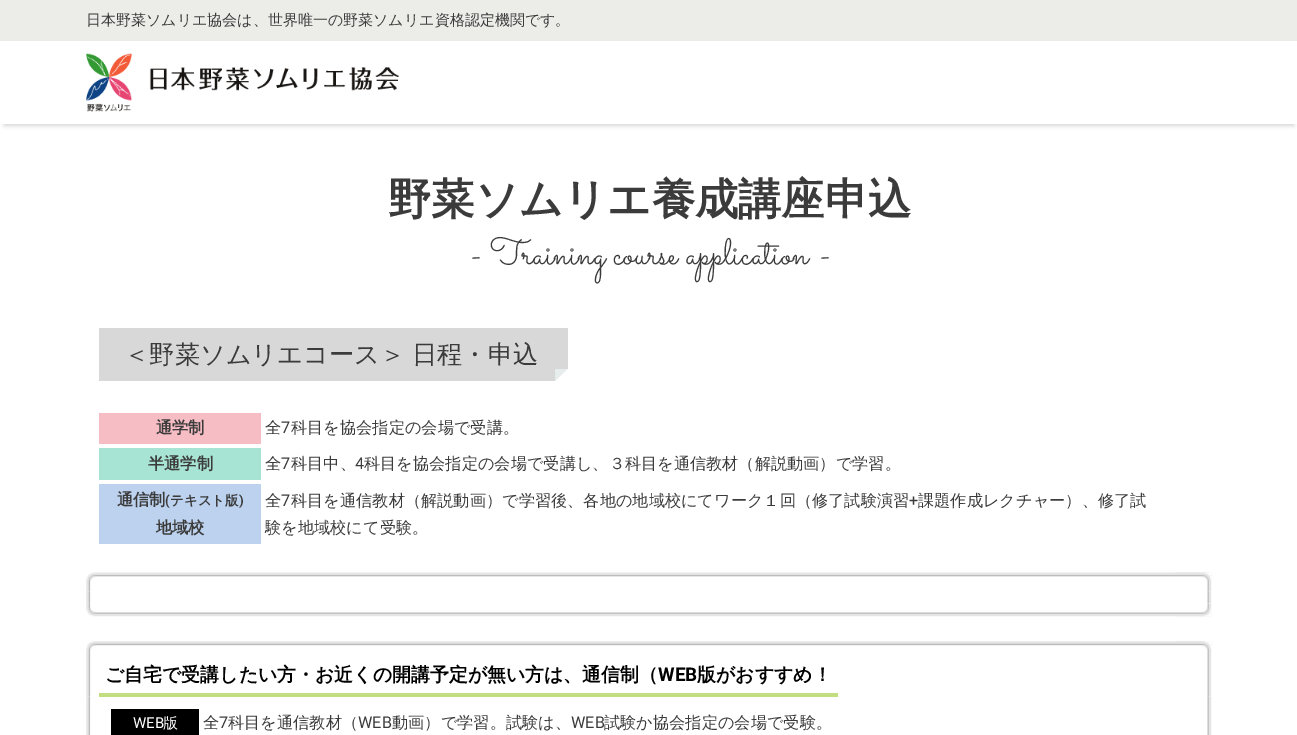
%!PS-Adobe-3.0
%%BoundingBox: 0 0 1297 735
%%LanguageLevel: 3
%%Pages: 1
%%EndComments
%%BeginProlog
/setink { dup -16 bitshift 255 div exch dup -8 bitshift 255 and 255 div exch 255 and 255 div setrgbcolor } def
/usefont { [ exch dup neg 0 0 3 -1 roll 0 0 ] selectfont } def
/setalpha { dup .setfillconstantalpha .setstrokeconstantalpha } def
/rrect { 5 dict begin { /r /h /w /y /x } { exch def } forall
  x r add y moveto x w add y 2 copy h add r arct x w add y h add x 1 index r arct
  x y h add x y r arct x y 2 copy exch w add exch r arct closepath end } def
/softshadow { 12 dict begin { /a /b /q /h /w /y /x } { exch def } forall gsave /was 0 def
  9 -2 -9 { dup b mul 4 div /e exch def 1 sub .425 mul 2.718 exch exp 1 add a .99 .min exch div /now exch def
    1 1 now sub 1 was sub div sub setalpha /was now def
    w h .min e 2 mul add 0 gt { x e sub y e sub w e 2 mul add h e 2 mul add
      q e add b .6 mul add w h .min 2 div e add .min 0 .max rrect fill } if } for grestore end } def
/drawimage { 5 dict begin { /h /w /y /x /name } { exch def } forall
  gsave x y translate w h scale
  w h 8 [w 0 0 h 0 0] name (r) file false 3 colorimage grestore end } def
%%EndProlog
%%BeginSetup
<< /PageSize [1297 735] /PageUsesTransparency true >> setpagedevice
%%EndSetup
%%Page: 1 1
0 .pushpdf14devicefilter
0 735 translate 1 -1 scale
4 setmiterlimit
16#FFFFFF setink
0 0 1297 735 rectfill
gsave
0 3 moveto 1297 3 lineto 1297 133 lineto 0 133 lineto closepath 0 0 moveto 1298 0 lineto 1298 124 lineto 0 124 lineto closepath eoclip newpath
16#BFBEBE setink
4 10 1290 116 0 2 0.6 softshadow
grestore
16#ECECE9 setink
0 0 1297 41 rectfill
/WenQuanYiZenHei-Medium 15 usefont
16#3B3B3B setink
86 25 moveto (日本野菜ソムリエ協会は、世界唯一の野菜ソムリエ資格認定機関です。) show
(img1.raw) 86 53 313 59 drawimage
/WenQuanYiZenHei-Bold 43.25 usefont
388 214 moveto (野菜ソムリエ養成講座申込) show
/Sacramento-Regular 36.75 usefont
468 264 moveto (- Training course application -) show
16#D8D8D8 setink
99 328 456 53 rectfill
111 369 moveto 568 369 lineto 568 328 lineto 555 328 lineto 555 369 lineto closepath fill
/WenQuanYiZenHei-Medium 25.25 usefont
16#3B3B3B setink
124 363 moveto -1 0 32 (＜野菜ソムリエコース＞ 日程・申込) widthshow
16#E7ECEC setink
555 369 moveto 567.5 369 lineto 555 381 lineto closepath fill
16#F7BDC4 setink
99 413 162 31 rectfill
/WenQuanYiZenHei-Bold 16.2 usefont
16#3B3B3B setink
156 433 moveto (通学制) show
/WenQuanYiZenHei-Medium 16.2 usefont
265 433 moveto (全) show
/Roboto-Regular 16.2 usefont
281 433 moveto (7) show
/WenQuanYiZenHei-Medium 16.2 usefont
291 433 moveto (科目を協会指定の会場で受講。) show
16#A8E4D3 setink
99 448 162 32 rectfill
/WenQuanYiZenHei-Bold 16.2 usefont
16#3B3B3B setink
148 469 moveto (半通学制) show
/WenQuanYiZenHei-Medium 16.2 usefont
265 469 moveto (全) show
/Roboto-Regular 16.2 usefont
281 469 moveto (7) show
/WenQuanYiZenHei-Medium 16.2 usefont
291 469 moveto (科目中、) show
/Roboto-Regular 16.2 usefont
355 469 moveto (4) show
/WenQuanYiZenHei-Medium 16.2 usefont
364 469 moveto (科目を協会指定の会場で受講し、３科目を通信教材（解説動画）で学習。) show
16#BCD2EF setink
99 484 162 60 rectfill
/WenQuanYiZenHei-Bold 16.2 usefont
16#3B3B3B setink
117 505 moveto (通信制) show
/Roboto-Bold 13.5 usefont
165 505 moveto (\() show
/WenQuanYiZenHei-Bold 13.5 usefont
170 505 moveto (テキスト版) show
/Roboto-Bold 13.5 usefont
239 505 moveto (\)) show
/WenQuanYiZenHei-Bold 16.2 usefont
156 533 moveto (地域校) show
/WenQuanYiZenHei-Medium 16.2 usefont
265 506 moveto (全) show
/Roboto-Regular 16.2 usefont
281 506 moveto (7) show
/WenQuanYiZenHei-Medium 16.2 usefont
291 506 moveto (科目を通信教材（解説動画）で学習後、各地の地域校にてワーク１回（修了試験演習) show
/Roboto-Regular 16.2 usefont
909 506 moveto (+) show
/WenQuanYiZenHei-Medium 16.2 usefont
918 506 moveto (課題作成レクチャー）、修了試) show
265 533 moveto (験を地域校にて受験。) show
(img2.raw) 86 572 1126 20 drawimage
(img3.raw) 1175 572 37 20 drawimage
(img4.raw) 86 591 5 13 drawimage
(img5.raw) 1207 591 5 13 drawimage
(img6.raw) 86 603 1126 14 drawimage
(img7.raw) 1175 603 37 14 drawimage
(img8.raw) 86 641 1126 56 drawimage
(img9.raw) 1175 641 37 56 drawimage
16#C2DE81 setink
99 693 739 4 rectfill
/WenQuanYiZenHei-Bold 18.9 usefont
16#000000 setink
105 681 moveto (ご自宅で受講したい方・お近くの開講予定が無い方は、通信制（) show
/Roboto-Bold 18.9 usefont
658 681 moveto (WEB) show
/WenQuanYiZenHei-Bold 18.9 usefont
697 681 moveto (版がおすすめ！) show
(img10.raw) 86 696 5 39 drawimage
(img11.raw) 1207 696 5 39 drawimage
111 709 88 26 rectfill
/Roboto-Regular 15 usefont
16#FFFFFF setink
133 728 moveto (WEB) show
/WenQuanYiZenHei-Medium 15 usefont
163 728 moveto (版) show
/WenQuanYiZenHei-Medium 16.2 usefont
16#3B3B3B setink
203 728 moveto (全) show
/Roboto-Regular 16.2 usefont
219 728 moveto (7) show
/WenQuanYiZenHei-Medium 16.2 usefont
228 728 moveto (科目を通信教材（) show
/Roboto-Regular 16.2 usefont
358 728 moveto (WEB) show
/WenQuanYiZenHei-Medium 16.2 usefont
392 728 moveto (動画）で学習。試験は、) show
/Roboto-Regular 16.2 usefont
571 728 moveto (WEB) show
/WenQuanYiZenHei-Medium 16.2 usefont
604 728 moveto (試験か協会指定の会場で受験。) show
.poppdf14devicefilter showpage
%%EOF
